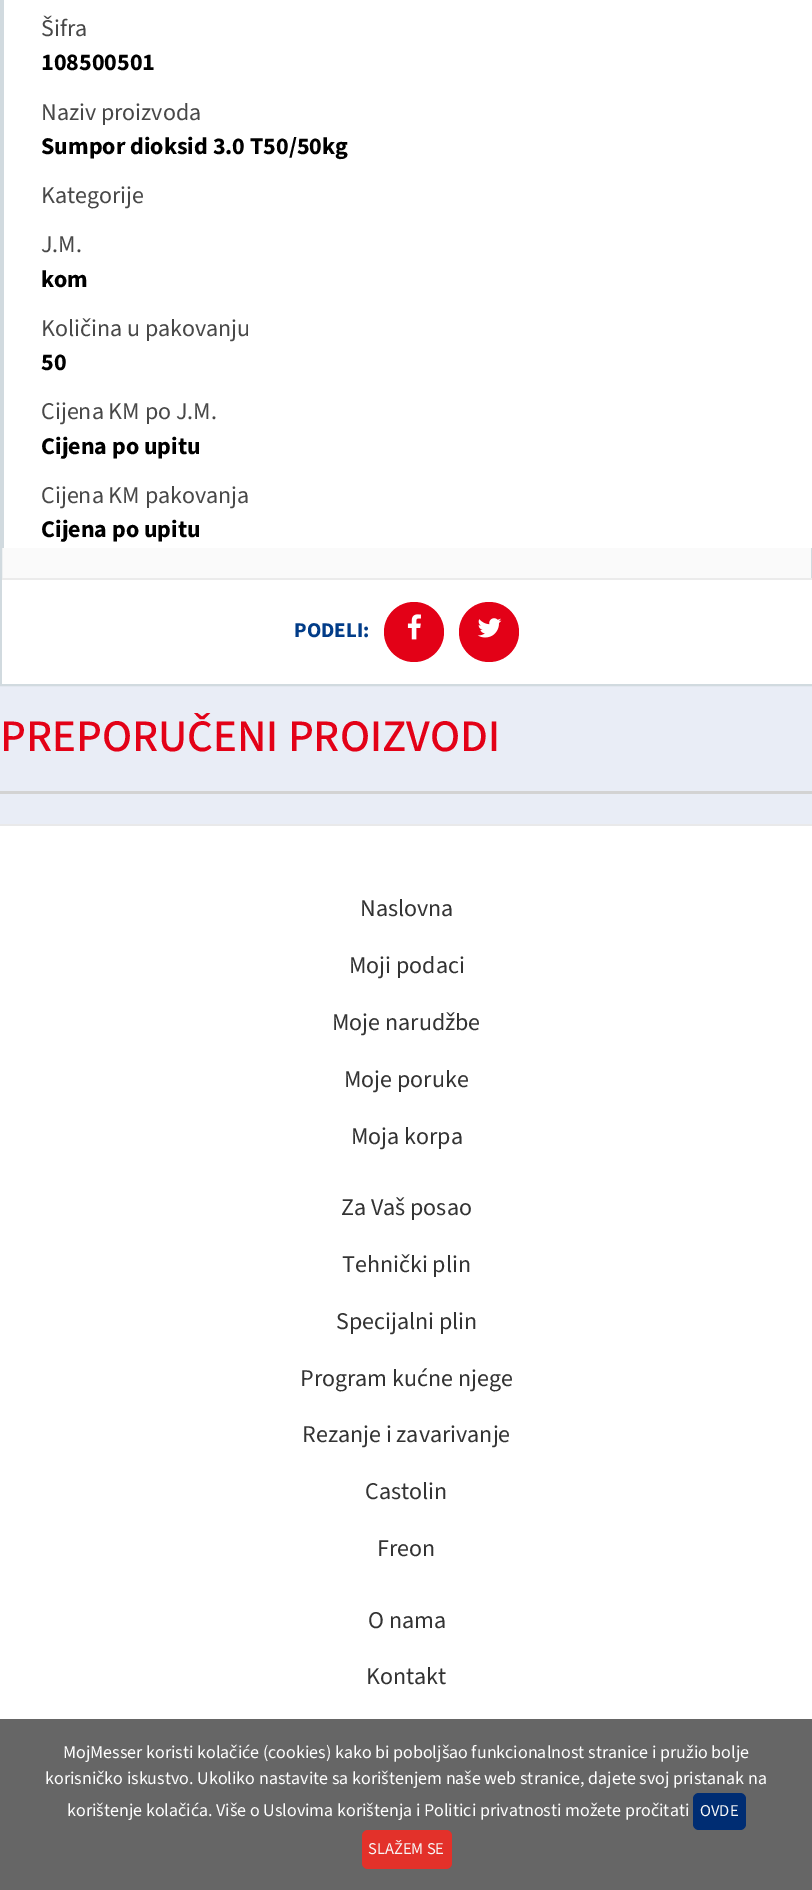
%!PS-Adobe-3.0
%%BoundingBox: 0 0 812 1890
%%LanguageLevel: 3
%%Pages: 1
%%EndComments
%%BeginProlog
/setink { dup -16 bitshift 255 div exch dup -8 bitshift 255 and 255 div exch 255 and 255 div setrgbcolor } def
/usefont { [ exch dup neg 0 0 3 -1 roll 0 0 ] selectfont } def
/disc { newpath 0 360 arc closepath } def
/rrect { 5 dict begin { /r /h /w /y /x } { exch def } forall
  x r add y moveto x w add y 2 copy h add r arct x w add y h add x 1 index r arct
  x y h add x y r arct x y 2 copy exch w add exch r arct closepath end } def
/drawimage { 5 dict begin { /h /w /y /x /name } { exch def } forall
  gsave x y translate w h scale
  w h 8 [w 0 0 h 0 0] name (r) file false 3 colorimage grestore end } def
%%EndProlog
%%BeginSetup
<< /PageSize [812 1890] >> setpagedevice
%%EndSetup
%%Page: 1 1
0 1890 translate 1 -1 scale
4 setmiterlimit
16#E9EDF6 setink
0 0 812 1890 rectfill
16#FAFAFA setink
2 548 809 30 rectfill
16#D1DADF setink
2 setlinewidth
1 -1 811 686 rectstroke
16#FFFFFF setink
4 0 808 548 rectfill
16#D1DADF setink
2 0 2 548 rectfill
/SourceSans3-Regular 24 usefont
16#484848 setink
41 36 moveto (Šifra) show
/SourceSans3-Bold 24 usefont
16#000000 setink
41 70 moveto (108500501) show
/SourceSans3-Regular 24 usefont
16#484848 setink
41 120 moveto (Naziv proizvoda) show
/SourceSans3-Bold 24 usefont
16#000000 setink
41 154 moveto (Sumpor dioksid 3.0 T50/50kg) show
/SourceSans3-Regular 24 usefont
16#484848 setink
41 203 moveto (Kategorije) show
41 252 moveto (J.M.) show
/SourceSans3-Bold 24 usefont
16#000000 setink
41 287 moveto (kom) show
/SourceSans3-Regular 24 usefont
16#484848 setink
41 336 moveto (Količina u pakovanju) show
/SourceSans3-Bold 24 usefont
16#000000 setink
41 370 moveto (50) show
/SourceSans3-Regular 24 usefont
16#484848 setink
41 419 moveto (Cijena KM po J.M.) show
/SourceSans3-Bold 24 usefont
16#000000 setink
41 454 moveto (Cijena po upitu) show
/SourceSans3-Regular 24 usefont
16#484848 setink
41 503 moveto (Cijena KM pakovanja) show
/SourceSans3-Bold 24 usefont
16#000000 setink
41 537 moveto (Cijena po upitu) show
16#FFFFFF setink
2 580 810 104 rectfill
16#EBEBEB setink
2 578 810 2 rectfill
/SourceSans3-Bold 21 usefont
16#013C88 setink
294 637 moveto (PODELI:) show
16#E30117 setink
414 632 30 disc fill
(img1.raw) 407 614 14 26 drawimage
489 632 30 disc fill
(img2.raw) 477 618 25 20 drawimage
/SourceSans3-Medium 45 usefont
0 751 moveto (PREPORUČENI PROIZVODI) show
[
    [0 791 812 3 16#D3D3D3]
    [0 826 812 893 16#FFFFFF]
    [0 824 812 2 16#E9E9EA]
] { aload pop setink rectfill } forall
/SourceSans3-Regular 24 usefont
16#333333 setink
[
    [(Naslovna) 360 916]
    [(Moji podaci) 349 973]
    [(Moje narudžbe) 332 1030]
    [(Moje poruke) 344 1087]
    [(Moja korpa) 351 1144]
    [(Za Vaš posao) 341 1215]
    [(Tehnički plin) 342 1272]
    [(Specijalni plin) 336 1329]
    [(Program kućne njege) 300 1386]
    [(Rezanje i zavarivanje) 302 1442]
    [(Castolin) 365 1499]
    [(Freon) 377 1556]
    [(O nama) 368 1628]
    [(Kontakt) 366 1684]
] { aload pop moveto show } forall
16#666666 setink
0 1719 812 171 rectfill
/SourceSans3-Regular 18 usefont
16#FFFFFF setink
[
    [(MojMesser koristi kolačiće \(cookies\) kako bi poboljšao funkcionalnost stranice i pružio bolje) 63 1758]
    [(korisničko iskustvo. Ukoliko nastavite sa korištenjem naše web stranice, dajete svoj pristanak na) 45 1784]
    [(korištenje kolačića. Više o Uslovima korištenja i Politici privatnosti možete pročitati) 67 1816]
] { aload pop moveto show } forall
16#002D73 setink
693 1793 53 37 6 rrect fill
/SourceSans3-Regular 16.5 usefont
16#F7F7F7 setink
700 1816 moveto (OVDE) show
16#E3312A setink
362 1830 90 39 6 rrect fill
16#F7F7F7 setink
368 1854 moveto (SLAŽEM SE) show
showpage
%%EOF
